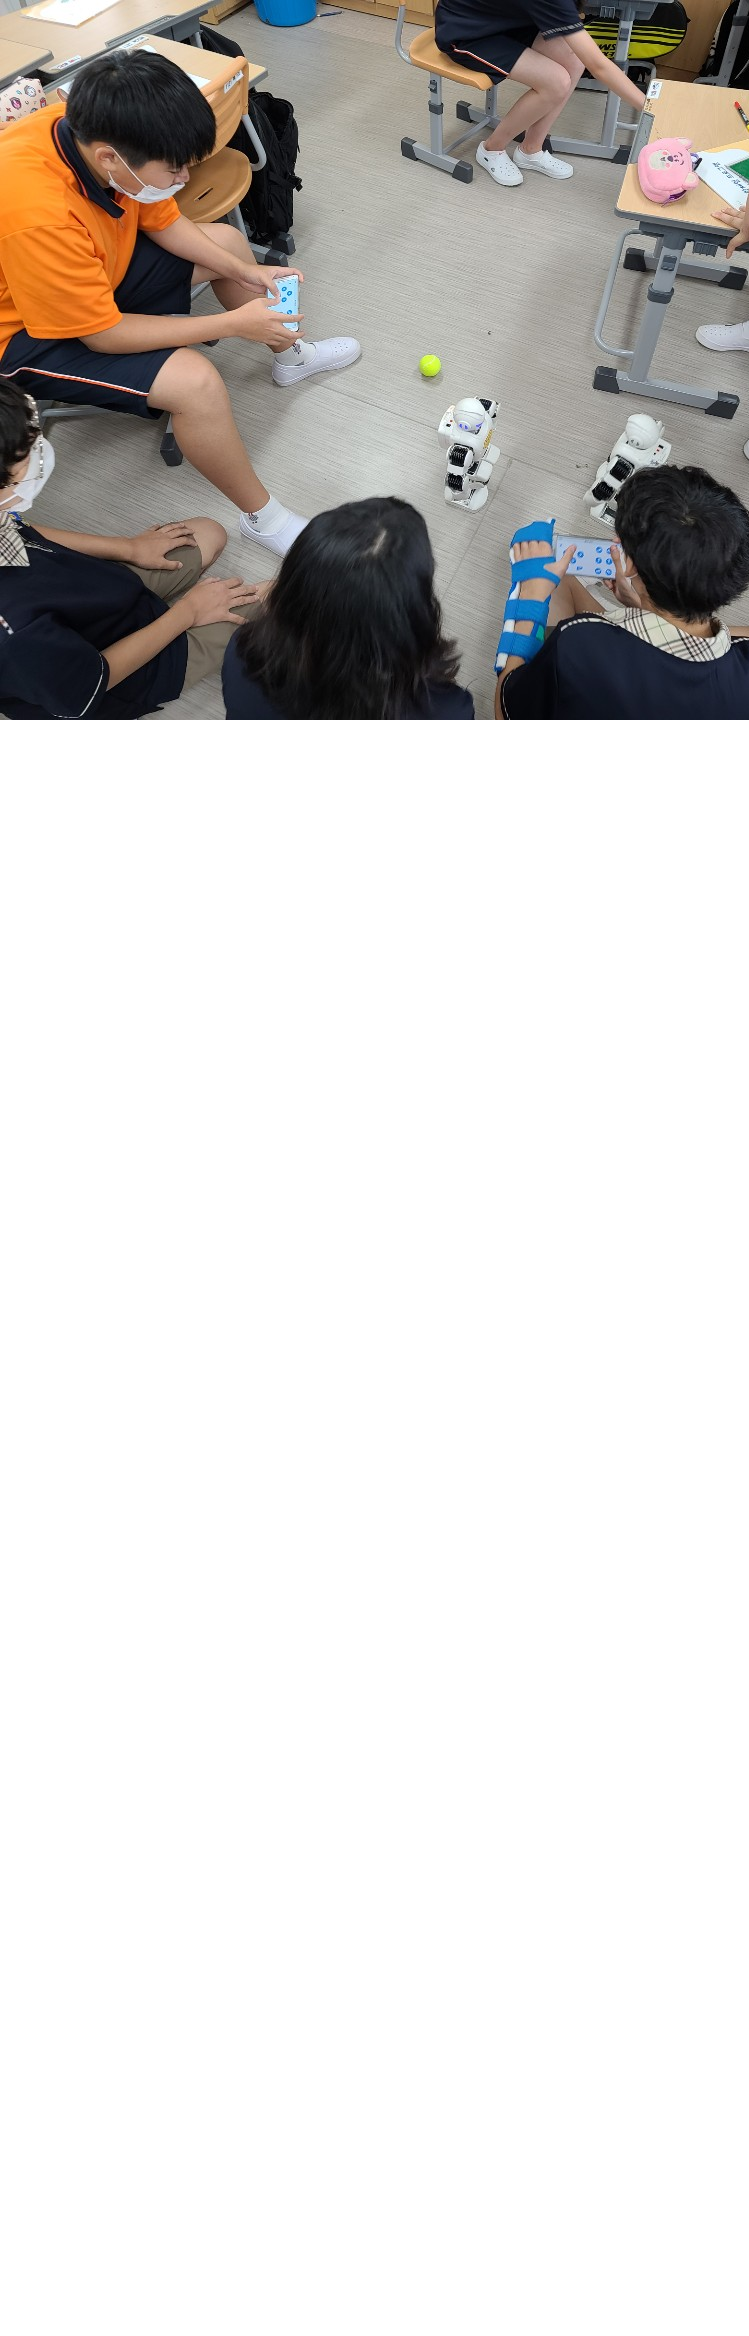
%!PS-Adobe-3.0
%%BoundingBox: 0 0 749 2336
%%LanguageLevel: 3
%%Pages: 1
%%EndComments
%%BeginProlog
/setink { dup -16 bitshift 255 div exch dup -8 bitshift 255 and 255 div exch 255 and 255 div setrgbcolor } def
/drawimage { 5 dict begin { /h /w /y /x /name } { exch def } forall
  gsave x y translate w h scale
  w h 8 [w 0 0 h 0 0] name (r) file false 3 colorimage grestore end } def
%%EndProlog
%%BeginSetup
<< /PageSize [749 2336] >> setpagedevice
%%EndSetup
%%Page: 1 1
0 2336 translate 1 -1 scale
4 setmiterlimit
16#FFFFFF setink
0 0 749 2336 rectfill
(img1.raw) 0 0 749 720 drawimage
showpage
%%EOF
